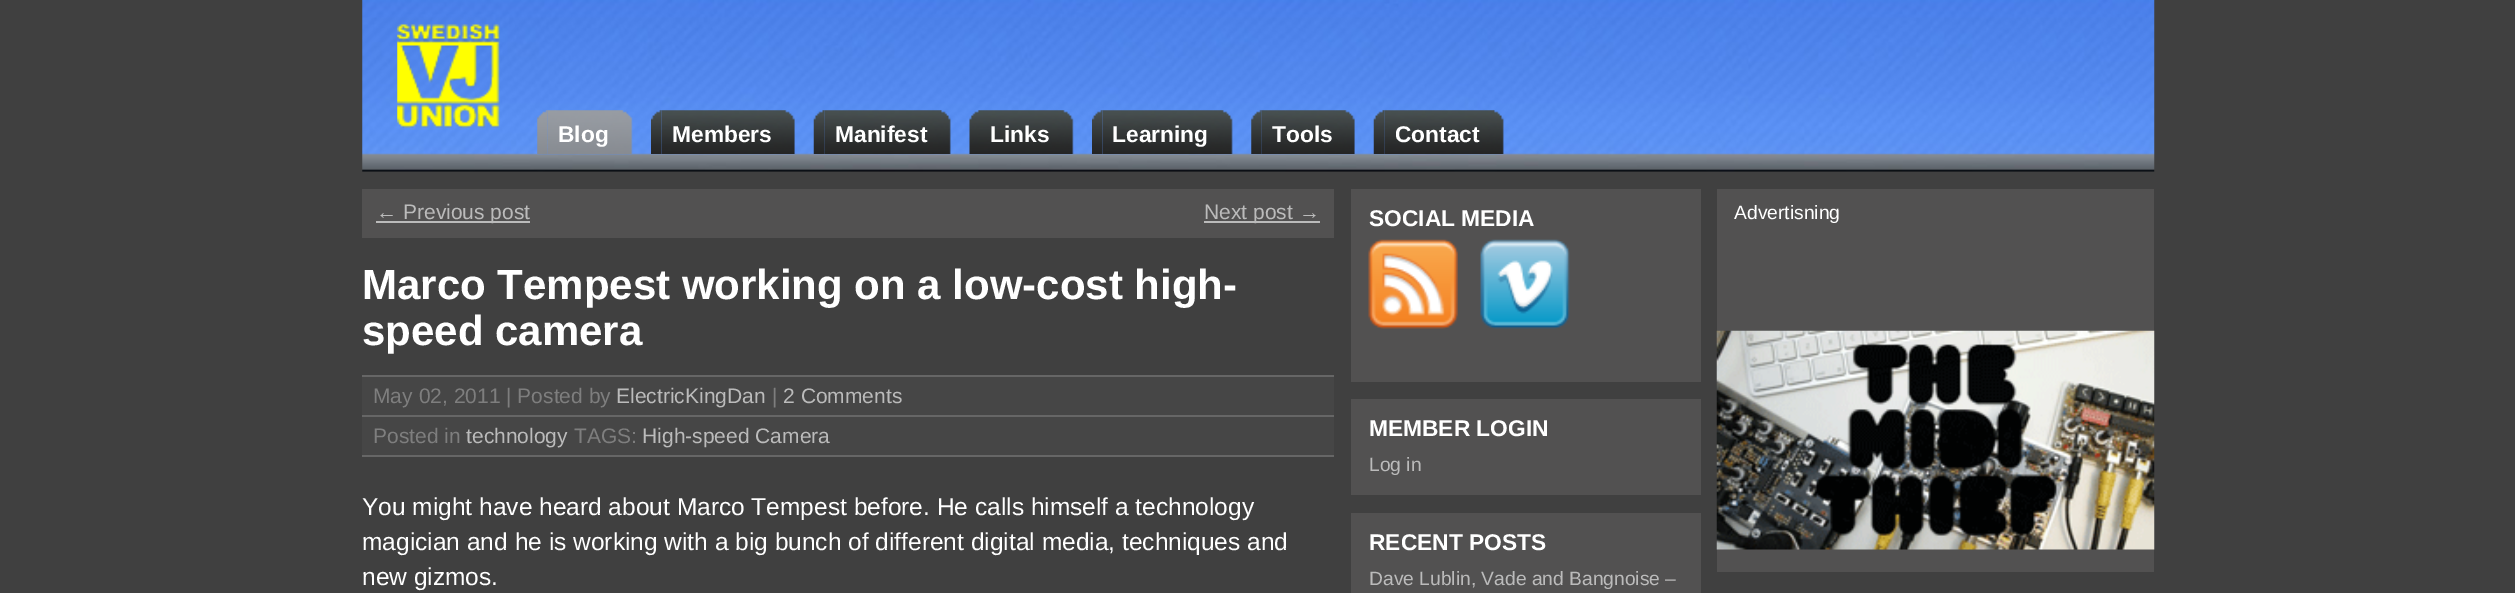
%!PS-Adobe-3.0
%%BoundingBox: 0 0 2515 593
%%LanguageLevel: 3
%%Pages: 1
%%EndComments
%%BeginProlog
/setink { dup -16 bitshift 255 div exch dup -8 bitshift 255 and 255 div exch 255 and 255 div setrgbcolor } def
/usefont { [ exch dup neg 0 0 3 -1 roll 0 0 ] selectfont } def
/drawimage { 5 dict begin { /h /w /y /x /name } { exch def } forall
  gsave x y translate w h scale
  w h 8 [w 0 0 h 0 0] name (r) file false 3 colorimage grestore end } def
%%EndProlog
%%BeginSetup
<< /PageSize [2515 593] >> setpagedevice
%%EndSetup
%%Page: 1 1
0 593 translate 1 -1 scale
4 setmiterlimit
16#404040 setink
0 0 2515 593 rectfill
(img1.raw) 362 0 1793 172 drawimage
(img2.raw) 397 24 103 104 drawimage
(img3.raw) 537 110 11 44 drawimage
(img4.raw) 547 110 86 44 drawimage
/LiberationSans-Bold 22.75 usefont
16#FFFFFF setink
558 142 moveto (Blog) show
(img5.raw) 651 110 11 44 drawimage
(img6.raw) 661 110 134 44 drawimage
672 142 moveto (Members) show
(img7.raw) 813 110 12 44 drawimage
(img8.raw) 824 110 127 44 drawimage
835 142 moveto (Manifest) show
(img9.raw) 969 110 11 44 drawimage
(img10.raw) 980 110 94 44 drawimage
990 142 moveto (Links) show
(img11.raw) 1092 110 11 44 drawimage
(img12.raw) 1102 110 131 44 drawimage
1112 142 moveto (Learning) show
(img13.raw) 1251 110 11 44 drawimage
(img14.raw) 1261 110 94 44 drawimage
1272 142 moveto (Tools) show
(img15.raw) 1373 110 12 44 drawimage
(img16.raw) 1384 110 120 44 drawimage
1395 142 moveto (Contact) show
16#525151 setink
362 189 972 49 rectfill
16#BBBBBB setink
376 221 154 2 rectfill
/LiberationSans-Regular 21 usefont
376 219 moveto (← Previous post) show
1204 221 116 2 rectfill
1204 219 moveto (Next post →) show
/LiberationSans-Bold 42 usefont
16#FFFFFF setink
362 299 moveto (Marco Tempest working on a low-cost high-) show
362 345 moveto (speed camera) show
[
    [362 377 972 38 16#464646]
    [362 375 972 2 16#666666]
    [362 415 972 2 16#666666]
] { aload pop setink rectfill } forall
/LiberationSans-Regular 21 usefont
16#7E7E7E setink
373 403 moveto (May 02, 2011 | Posted by) show
16#BBBBBB setink
616 403 moveto (ElectricKingDan) show
16#7E7E7E setink
772 403 moveto (|) show
16#BBBBBB setink
783 403 moveto (2 Comments) show
16#464646 setink
362 417 972 38 rectfill
16#666666 setink
362 455 972 2 rectfill
16#7E7E7E setink
373 443 moveto (Posted in) show
16#BBBBBB setink
466 443 moveto (technology) show
16#7E7E7E setink
574 443 moveto (TAGS:) show
16#BBBBBB setink
642 443 moveto (High-speed Camera) show
/LiberationSans-Regular 24.5 usefont
16#FFFFFF setink
[
    [(You might have heard about Marco Tempest before. He calls himself a technology) 362 515]
    [(magician and he is working with a big bunch of different digital media, techniques and) 362 550]
    [(new gizmos.) 362 585]
] { aload pop moveto show } forall
16#525151 setink
1351 189 350 193 rectfill
/LiberationSans-Bold 22.75 usefont
16#FFFFFF setink
1369 226 moveto (SOCIAL MEDIA) show
(img17.raw) 1368 239 90 90 drawimage
(img18.raw) 1480 239 90 90 drawimage
16#525151 setink
1351 399 350 96 rectfill
16#FFFFFF setink
1369 436 moveto (MEMBER LOGIN) show
/LiberationSans-Regular 19.25 usefont
16#BBBBBB setink
1369 471 moveto (Log in) show
16#525151 setink
1351 513 350 80 rectfill
/LiberationSans-Bold 22.75 usefont
16#FFFFFF setink
1369 550 moveto (RECENT POSTS) show
/LiberationSans-Regular 19.25 usefont
16#BBBBBB setink
1369 585 moveto (Dave Lublin, Vade and Bangnoise –) show
16#525151 setink
1717 189 437 383 rectfill
16#FFFFFF setink
1734 219 moveto (Advertisning) show
(img19.raw) 1716 330 439 220 drawimage
showpage
%%EOF
